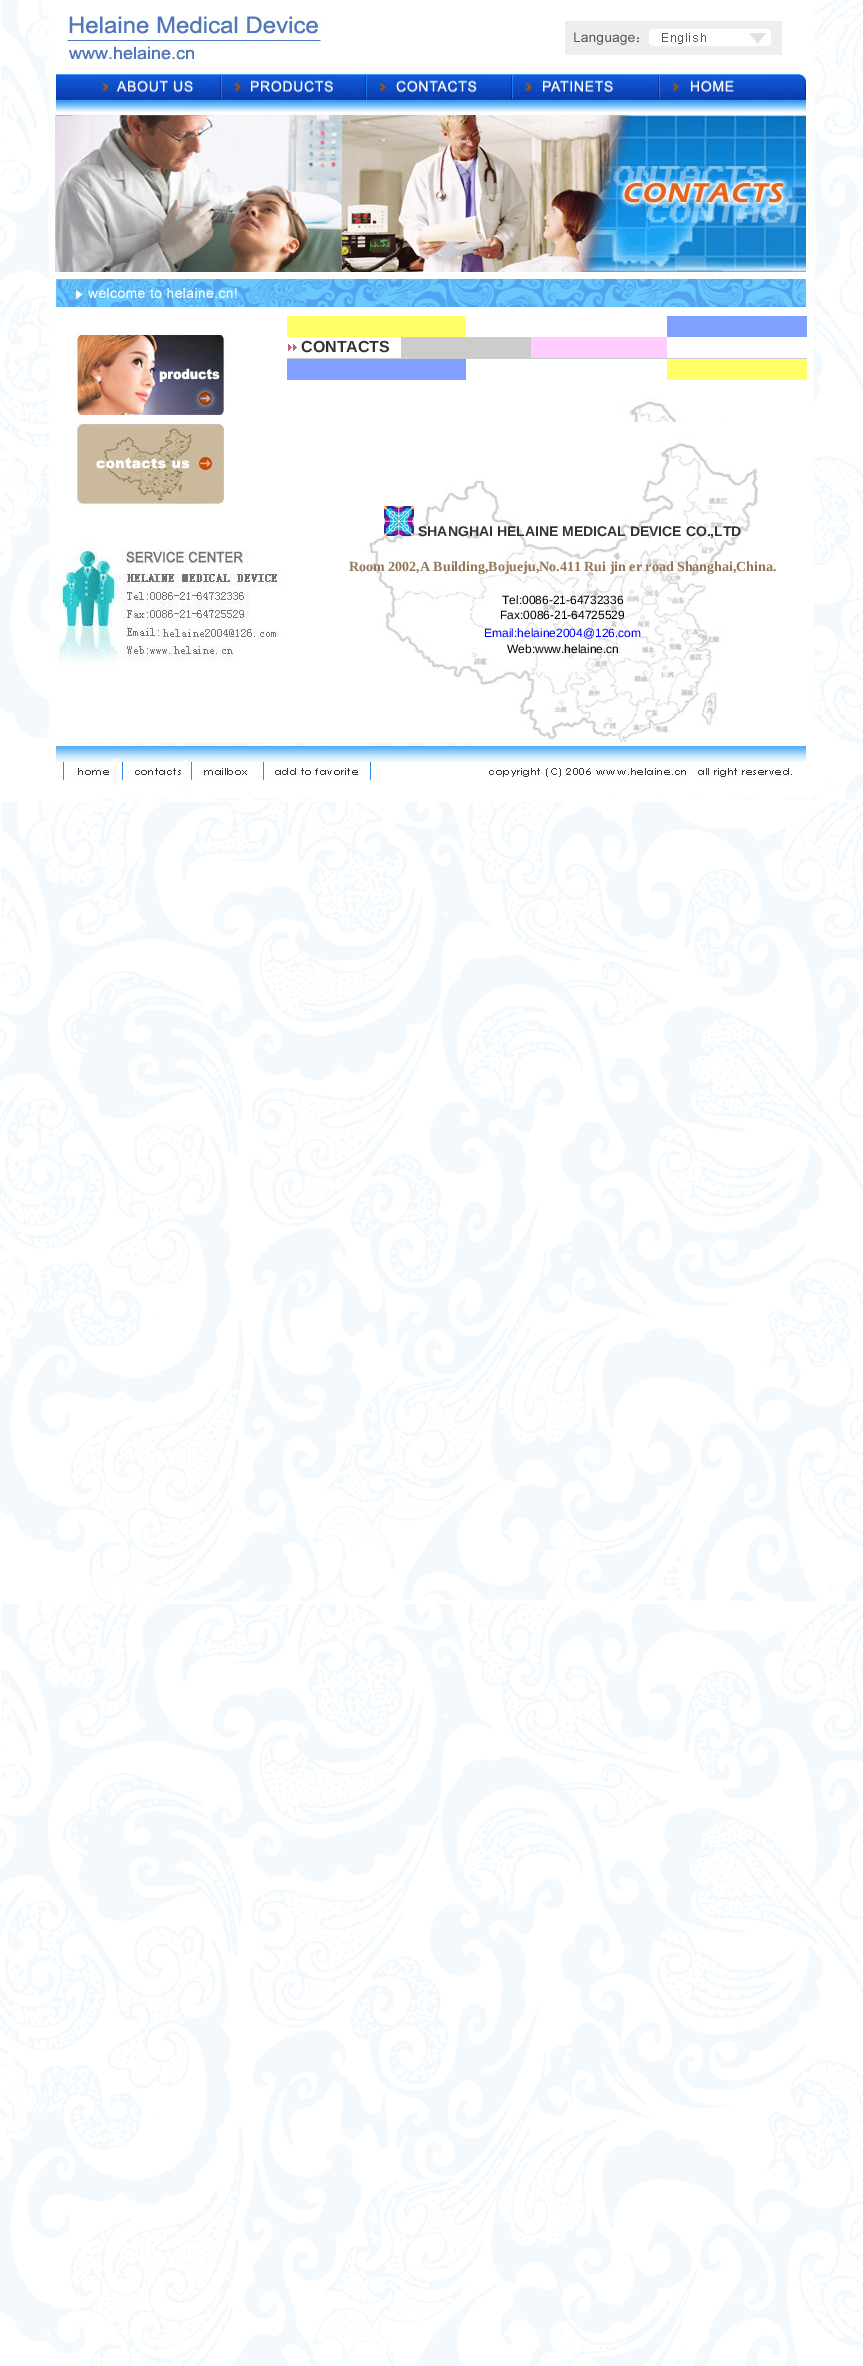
%!PS-Adobe-3.0
%%BoundingBox: 0 0 863 2366
%%LanguageLevel: 3
%%Pages: 1
%%EndComments
%%BeginProlog
/setink { dup -16 bitshift 255 div exch dup -8 bitshift 255 and 255 div exch 255 and 255 div setrgbcolor } def
/usefont { [ exch dup neg 0 0 3 -1 roll 0 0 ] selectfont } def
/drawimage { 5 dict begin { /h /w /y /x /name } { exch def } forall
  gsave x y translate w h scale
  w h 8 [w 0 0 h 0 0] name (r) file false 3 colorimage grestore end } def
%%EndProlog
%%BeginSetup
<< /PageSize [863 2366] >> setpagedevice
%%EndSetup
%%Page: 1 1
0 2366 translate 1 -1 scale
4 setmiterlimit
16#FFFFFF setink
0 0 863 2366 rectfill
(img1.raw) 0 0 863 2366 drawimage
49 0 765 798 rectfill
(img2.raw) 65 16 256 48 drawimage
(img3.raw) 565 20 217 36 drawimage
(img4.raw) 49 71 760 41 drawimage
(img5.raw) 49 112 760 160 drawimage
(img6.raw) 49 274 760 40 drawimage
(img7.raw) 73 332 153 176 drawimage
(img8.raw) 49 541 232 125 drawimage
16#FFFF66 setink
287 316 179 21 rectfill
16#809FFF setink
667 316 140 21 rectfill
(img9.raw) 288 344 9 7 drawimage
/LiberationSans-Bold 16 usefont
16#333333 setink
301 352 moveto (CONTACTS) show
[
    [401 337 130 21 16#CCCCCC]
    [531 337 136 21 16#FFCCFF]
    [287 358 520 1 16#CCCCCC]
    [287 359 179 21 16#809FFF]
    [667 359 140 21 16#FFFF66]
] { aload pop setink rectfill } forall
(img10.raw) 335 397 392 25 drawimage
(img11.raw) 335 422 424 320 drawimage
(img12.raw) 384 506 30 30 drawimage
/LiberationSans-Bold 14 usefont
16#333333 setink
418 536 moveto (SHANGHAI HELAINE MEDICAL DEVICE CO.,LTD) show
/LiberationSerif-Bold 14 usefont
16#937657 setink
349 571 moveto (Room 2002,A Building,Bojueju,No.411 Rui jin er road Shanghai,China.) show
/LiberationSans-Regular 12 usefont
16#000000 setink
502 604 moveto (Tel:0086-21-64732336) show
500 619 moveto (Fax:0086-21-64725529) show
16#0000FF setink
484 637 moveto (Email:helaine2004@126.com) show
16#000000 setink
507 653 moveto (Web:www.helaine.cn) show
(img13.raw) 49 742 760 43 drawimage
showpage
%%EOF
